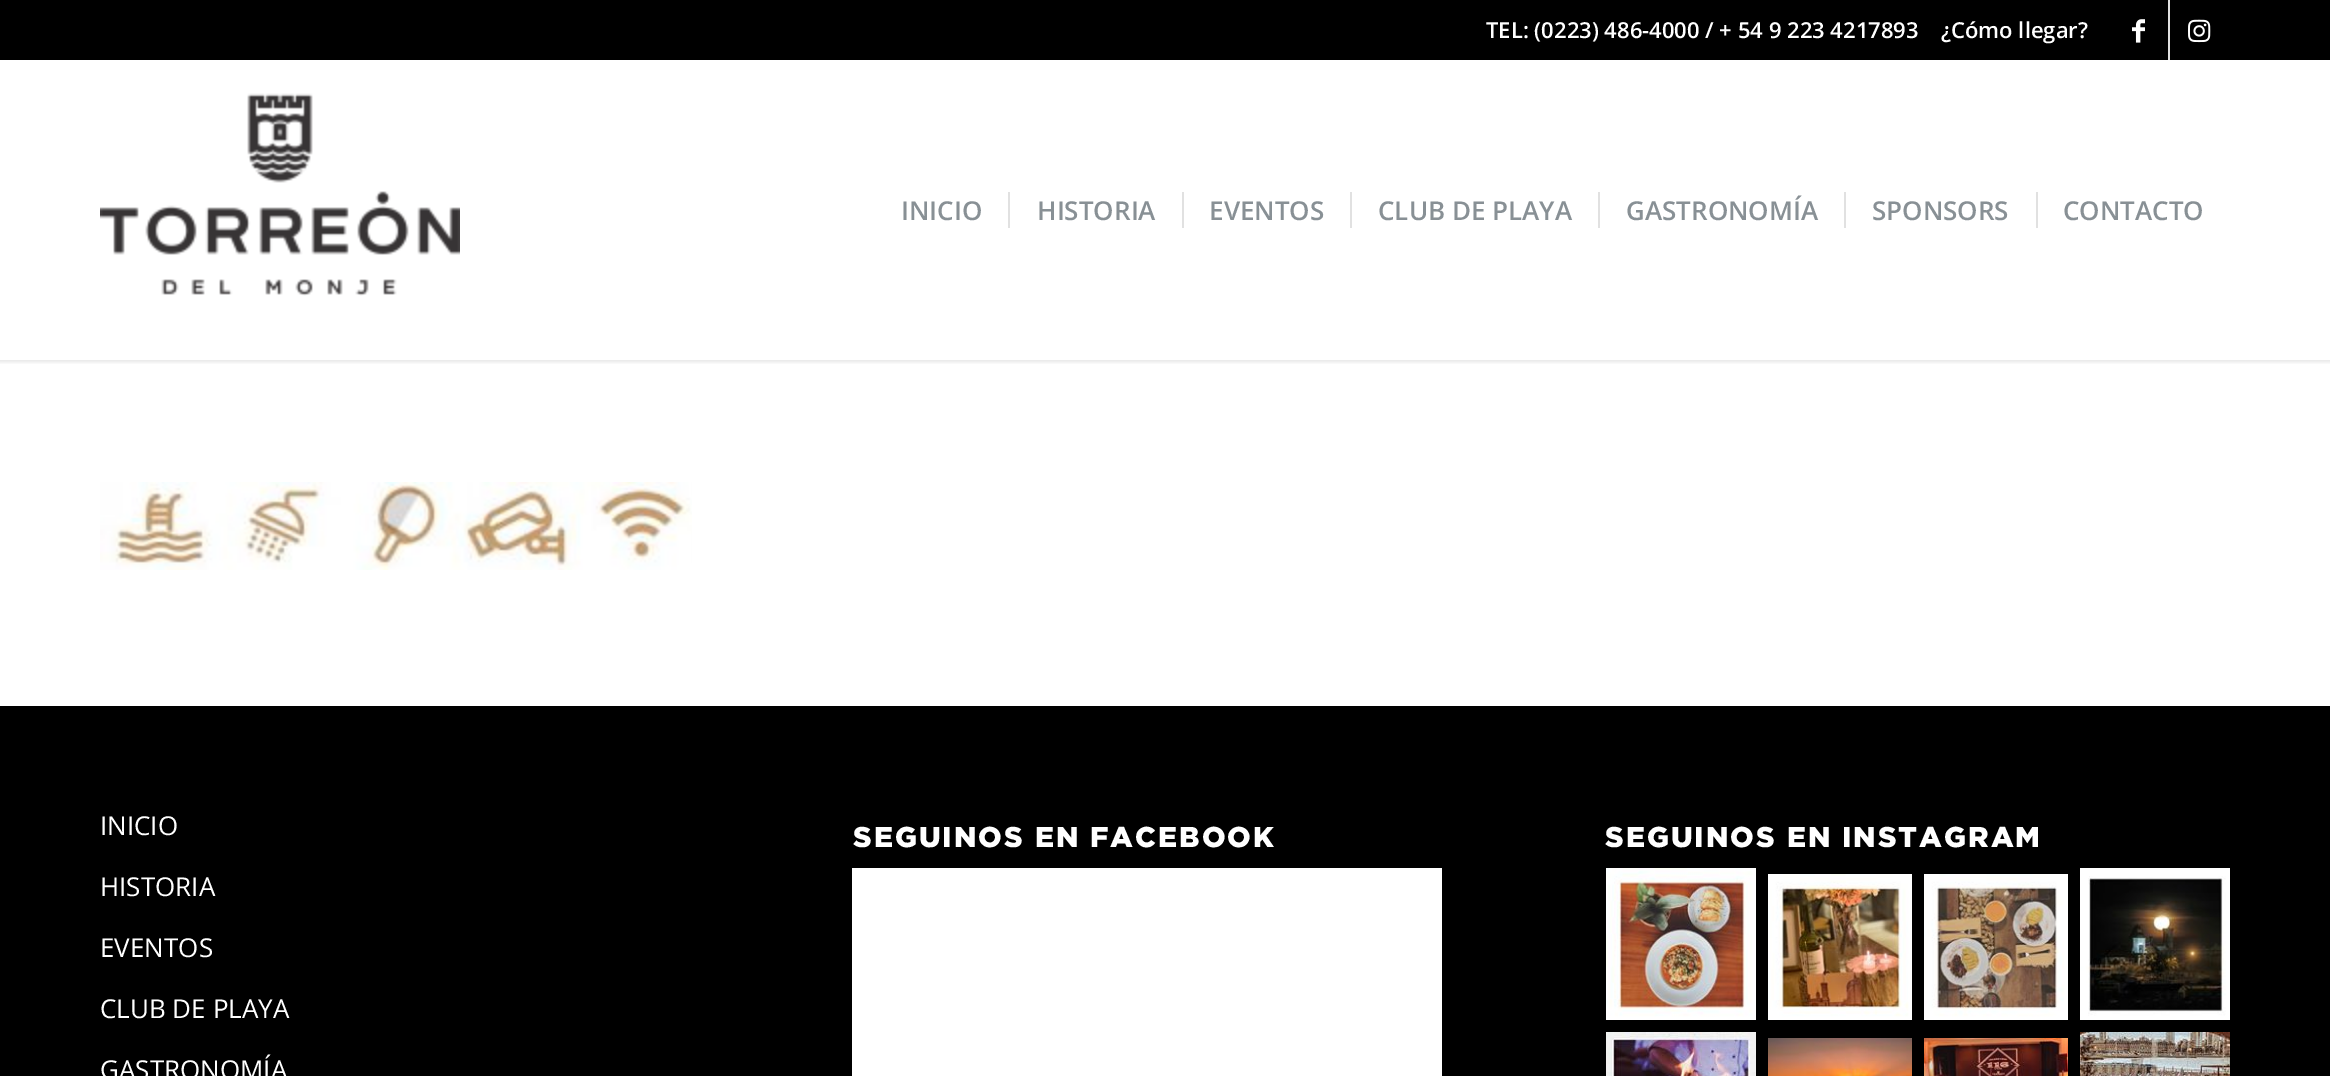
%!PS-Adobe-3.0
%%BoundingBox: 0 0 2330 1076
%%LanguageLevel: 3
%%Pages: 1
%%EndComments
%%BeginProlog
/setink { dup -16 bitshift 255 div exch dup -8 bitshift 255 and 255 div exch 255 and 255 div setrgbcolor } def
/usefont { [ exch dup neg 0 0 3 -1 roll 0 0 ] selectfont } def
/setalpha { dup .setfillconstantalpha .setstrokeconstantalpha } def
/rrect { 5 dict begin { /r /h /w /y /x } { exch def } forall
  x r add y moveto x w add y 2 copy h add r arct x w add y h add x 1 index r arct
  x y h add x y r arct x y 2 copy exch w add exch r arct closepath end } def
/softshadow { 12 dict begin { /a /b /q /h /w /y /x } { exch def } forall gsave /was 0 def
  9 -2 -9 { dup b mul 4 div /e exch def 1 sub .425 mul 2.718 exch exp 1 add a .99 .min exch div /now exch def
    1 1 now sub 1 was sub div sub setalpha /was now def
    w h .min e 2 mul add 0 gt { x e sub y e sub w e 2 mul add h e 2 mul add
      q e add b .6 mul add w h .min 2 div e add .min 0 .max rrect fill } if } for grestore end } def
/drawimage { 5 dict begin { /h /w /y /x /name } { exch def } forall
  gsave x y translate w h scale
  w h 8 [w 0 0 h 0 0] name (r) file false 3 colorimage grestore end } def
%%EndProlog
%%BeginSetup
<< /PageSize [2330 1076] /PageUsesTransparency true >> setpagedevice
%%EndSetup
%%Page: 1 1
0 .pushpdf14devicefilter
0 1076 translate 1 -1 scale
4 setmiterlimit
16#FFFFFF setink
0 0 2330 1076 rectfill
gsave
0 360 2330 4 rectclip
16#000000 setink
-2 -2 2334 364 0 2 0.1 softshadow
grestore
16#000000 setink
0 0 2330 60 rectfill
/OpenSans-SemiBold 22 usefont
16#FFFFFF setink
1486 38 moveto (TEL: \(0223\) 486-4000 / + 54 9 223 4217893) show
1941 38 moveto (¿Cómo llegar?) show
16#E1E1E1 setink
2168 0 2 60 rectfill
(img1.raw) 2132 19 13 24 drawimage
(img2.raw) 2188 19 23 24 drawimage
(img3.raw) 100 93 360 203 drawimage
/OpenSans-SemiBold 26 usefont
16#889095 setink
901 220 moveto (INICIO) show
1037 220 moveto (HISTORIA) show
16#E1E1E1 setink
1008 192 2 36 rectfill
16#889095 setink
1209 220 moveto (EVENTOS) show
16#E1E1E1 setink
1182 192 2 36 rectfill
16#889095 setink
1378 220 moveto (CLUB DE PLAYA) show
16#E1E1E1 setink
1350 192 2 36 rectfill
16#889095 setink
1626 220 moveto (GASTRONOMÍA) show
16#E1E1E1 setink
1598 192 2 36 rectfill
16#889095 setink
1872 220 moveto (SPONSORS) show
16#E1E1E1 setink
1844 192 2 36 rectfill
16#889095 setink
2063 220 moveto (CONTACTO) show
16#E1E1E1 setink
2036 192 2 36 rectfill
(img4.raw) 100 482 592 88 drawimage
16#000000 setink
0 706 2330 370 rectfill
/OpenSans-Regular 26 usefont
16#FFFFFF setink
[
    [(INICIO) 100 835]
    [(HISTORIA) 100 896]
    [(EVENTOS) 100 957]
    [(CLUB DE PLAYA) 100 1018]
    [(GASTRONOMÍA) 100 1079]
] { aload pop moveto show } forall
/Gotham-Black 28.6 usefont
853 847 moveto 2 0 (SEGUINOS EN FACEBOOK) ashow
852 868 590 208 rectfill
1605 847 moveto 2 0 (SEGUINOS EN INSTAGRAM) ashow
(img5.raw) 1606 868 150 152 drawimage
(img6.raw) 1768 874 144 146 drawimage
(img7.raw) 1924 874 144 146 drawimage
(img8.raw) 2080 868 150 152 drawimage
(img9.raw) 1606 1032 150 44 drawimage
(img10.raw) 1768 1038 144 38 drawimage
(img11.raw) 1924 1038 144 38 drawimage
(img12.raw) 2080 1032 150 44 drawimage
.poppdf14devicefilter showpage
%%EOF
